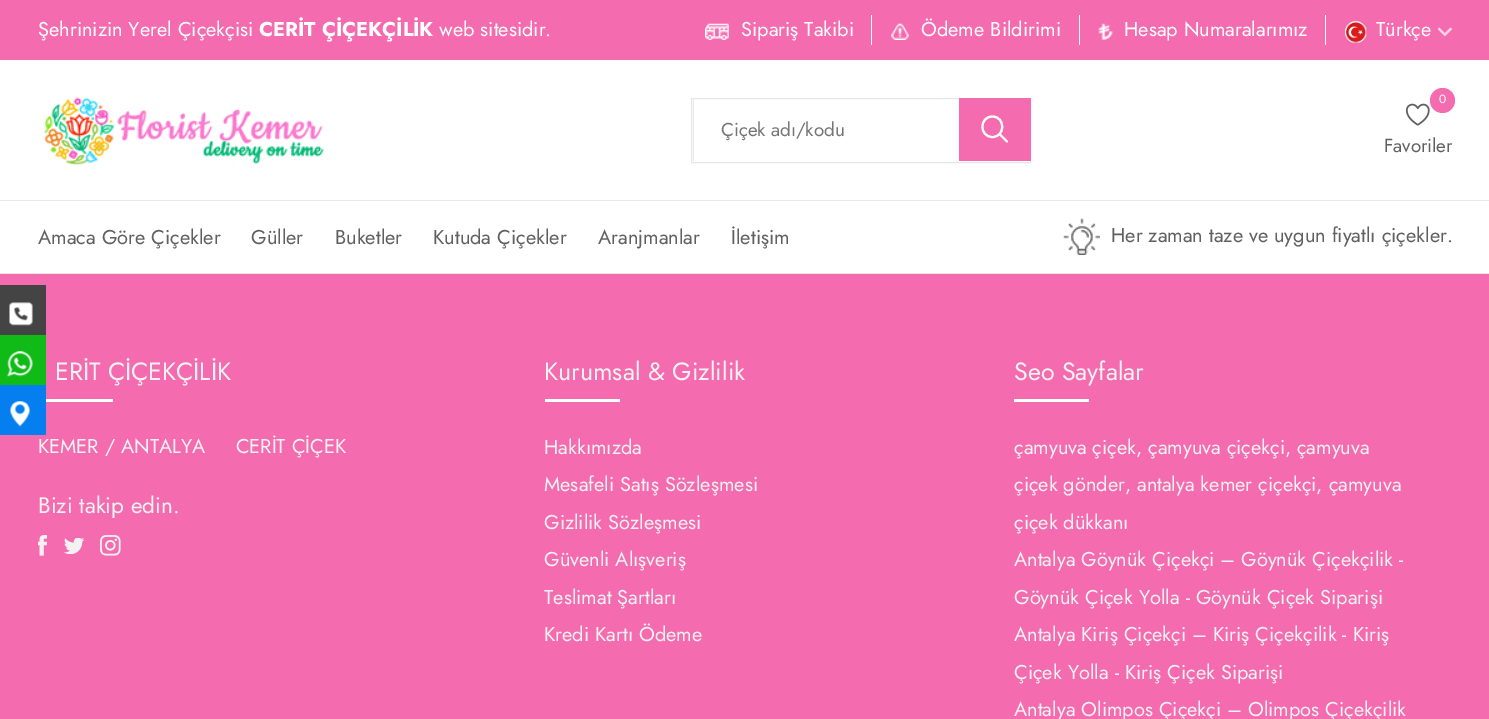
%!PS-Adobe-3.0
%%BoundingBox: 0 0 1489 719
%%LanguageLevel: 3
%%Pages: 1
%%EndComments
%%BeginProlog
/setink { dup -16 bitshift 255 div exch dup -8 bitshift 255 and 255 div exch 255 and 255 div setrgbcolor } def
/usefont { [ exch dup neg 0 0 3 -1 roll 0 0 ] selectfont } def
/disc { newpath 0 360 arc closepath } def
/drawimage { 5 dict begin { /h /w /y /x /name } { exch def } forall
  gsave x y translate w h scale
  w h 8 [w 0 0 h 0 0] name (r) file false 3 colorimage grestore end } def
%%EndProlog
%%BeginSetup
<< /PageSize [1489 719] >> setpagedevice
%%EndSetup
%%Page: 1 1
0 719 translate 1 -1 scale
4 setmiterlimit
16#FFFFFF setink
0 0 1489 719 rectfill
16#F46BAF setink
0 0 1489 60 rectfill
/Jost-Regular 20 usefont
16#FFFFFF setink
38 36 moveto (Şehrinizin Yerel Çiçekçisi) show
/Jost-Bold 20 usefont
259 36 moveto (CERİT ÇİÇEKÇİLİK) show
/Jost-Regular 20 usefont
439 36 moveto (web sitesidir.) show
(img1.raw) 705 23 24 17 drawimage
741 36 moveto (Sipariş Takibi) show
871 15 1 30 rectfill
(img2.raw) 891 23 18 17 drawimage
921 36 moveto (Ödeme Bildirimi) show
1079 15 1 30 rectfill
(img3.raw) 1098 23 15 17 drawimage
1124 36 moveto (Hesap Numaralarımız) show
1325 15 1 30 rectfill
(img4.raw) 1345 21 22 22 drawimage
1376 36 moveto (Türkçe) show
(img5.raw) 1438 27 15 10 drawimage
(img6.raw) 43 97 281 69 drawimage
16#E7E7E7 setink
691.5 98.5 339 64 rectstroke
693 99 1 62 rectfill
/Jost-Regular 18.75 usefont
16#757575 setink
721 136 moveto (Çiçek adı/kodu) show
16#F46BAF setink
959 98 72 63 rectfill
16#FFFFFF setink
2.1 setlinewidth
992.5 116.5 moveto 979 116.5 979 137 992.5 137 curveto 1005.5 137 1005.5 116.5 992.5 116.5 curveto closepath stroke
1 setlinecap
1000 134.5 moveto 1007 141.5 lineto stroke
16#F46BAF setink
1442.5 100.5 12.5 disc fill
/Jost-Regular 12 usefont
16#FFFFFF setink
1439 103 moveto (0) show
(img7.raw) 1405 103 25 23 drawimage
/Jost-Regular 18.75 usefont
16#606060 setink
1384 152 moveto (Favoriler) show
16#E7E7E7 setink
0 200 1489 1 rectfill
0 273 1489 1 rectfill
/Jost-Regular 20 usefont
16#606060 setink
[
    [(Amaca Göre Çiçekler) 38 244]
    [(Güller) 251 244]
    [(Buketler) 335 244]
    [(Kutuda Çiçekler) 433 244]
    [(Aranjmanlar) 598 244]
    [(İletişim) 731 244]
] { aload pop moveto show } forall
(img8.raw) 1063 218 37 37 drawimage
1111 242 moveto (Her zaman taze ve uygun fiyatlı çiçekler.) show
16#F46BAF setink
0 274 1489 445 rectfill
16#444444 setink
0 285 46 50 rectfill
(img9.raw) 9 302 24 24 drawimage
16#11BB17 setink
0 335 46 50 rectfill
(img10.raw) 7 351 26 26 drawimage
16#FFFFFF setink
38 399 75 3 rectfill
16#057EEF setink
0 385 46 50 rectfill
(img11.raw) 10 401 20 26 drawimage
/Jost-Regular 25 usefont
16#F2F2F2 setink
55 380 moveto (ERİT ÇİÇEKÇİLİK) show
/Jost-Regular 20 usefont
38 453 moveto (KEMER / ANTALYA     CERİT ÇİÇEK) show
/Jost-Regular 22.5 usefont
38 513 moveto (Bizi takip edin.) show
(img12.raw) 38 535 9 21 drawimage
(img13.raw) 64 538 20 16 drawimage
(img14.raw) 100 535 21 21 drawimage
/Jost-Regular 25 usefont
544 380 moveto (Kurumsal & Gizlilik) show
16#FFFFFF setink
545 399 75 3 rectfill
/Jost-Regular 20 usefont
16#F2F2F2 setink
[
    [(Hakkımızda) 544 454]
    [(Mesafeli Satış Sözleşmesi) 544 491]
    [(Gizlilik Sözleşmesi) 544 529]
    [(Güvenli Alışveriş) 544 566]
    [(Teslimat Şartları) 544 604]
    [(Kredi Kartı Ödeme) 544 641]
] { aload pop moveto show } forall
/Jost-Regular 25 usefont
1014 380 moveto (Seo Sayfalar) show
16#FFFFFF setink
1014 399 75 3 rectfill
/Jost-Regular 20 usefont
16#F2F2F2 setink
[
    [(çamyuva çiçek, çamyuva çiçekçi, çamyuva) 1014 454]
    [(çiçek gönder, antalya kemer çiçekçi, çamyuva) 1014 491]
    [(çiçek dükkanı) 1014 529]
    [(Antalya Göynük Çiçekçi – Göynük Çiçekçilik -) 1014 566]
    [(Göynük Çiçek Yolla - Göynük Çiçek Siparişi) 1014 604]
    [(Antalya Kiriş Çiçekçi – Kiriş Çiçekçilik - Kiriş) 1014 641]
    [(Çiçek Yolla - Kiriş Çiçek Siparişi) 1014 679]
    [(Antalya Olimpos Çiçekçi – Olimpos Çiçekçilik) 1014 716]
] { aload pop moveto show } forall
showpage
%%EOF
